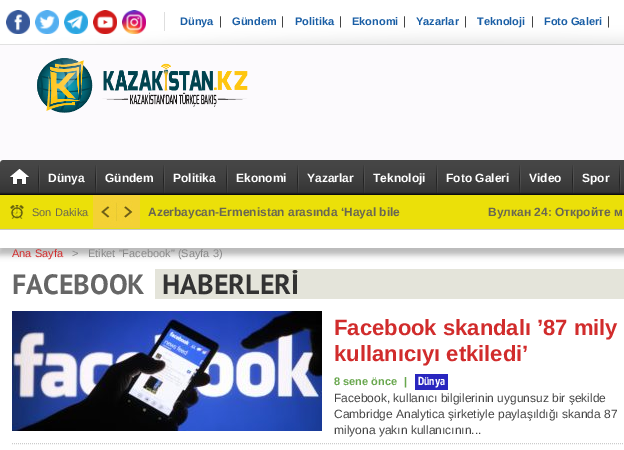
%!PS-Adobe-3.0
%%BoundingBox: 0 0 624 450
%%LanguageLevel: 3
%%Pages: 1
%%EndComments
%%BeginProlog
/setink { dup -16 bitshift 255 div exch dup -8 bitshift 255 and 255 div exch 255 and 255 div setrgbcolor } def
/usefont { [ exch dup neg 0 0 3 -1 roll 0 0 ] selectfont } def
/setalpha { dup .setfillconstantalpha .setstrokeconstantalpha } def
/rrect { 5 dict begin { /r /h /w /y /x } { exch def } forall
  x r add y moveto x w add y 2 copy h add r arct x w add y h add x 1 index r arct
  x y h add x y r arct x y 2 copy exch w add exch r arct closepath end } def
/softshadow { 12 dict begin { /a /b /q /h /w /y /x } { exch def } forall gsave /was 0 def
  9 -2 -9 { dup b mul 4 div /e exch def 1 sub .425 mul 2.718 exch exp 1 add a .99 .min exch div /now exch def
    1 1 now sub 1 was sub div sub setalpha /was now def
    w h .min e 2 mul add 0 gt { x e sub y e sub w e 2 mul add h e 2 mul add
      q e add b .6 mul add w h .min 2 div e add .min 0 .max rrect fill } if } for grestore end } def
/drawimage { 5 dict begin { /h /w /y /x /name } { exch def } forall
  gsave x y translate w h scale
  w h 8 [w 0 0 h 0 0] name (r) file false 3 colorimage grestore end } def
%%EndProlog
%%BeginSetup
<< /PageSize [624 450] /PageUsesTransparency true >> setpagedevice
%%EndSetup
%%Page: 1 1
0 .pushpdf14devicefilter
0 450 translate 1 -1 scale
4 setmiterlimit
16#FFFFFF setink
0 0 624 450 rectfill
16#FCFAFD setink
0 45 624 115 rectfill
(img1.raw) 0 0 624 45 drawimage
(img2.raw) 6 10 24 24 drawimage
(img3.raw) 35 10 24 24 drawimage
(img4.raw) 64 10 24 24 drawimage
(img5.raw) 93 10 24 24 drawimage
(img6.raw) 122 10 24 24 drawimage
16#DEDEDE setink
164 12 1 19 rectfill
/LiberationSans-Bold 11 usefont
16#195EA5 setink
180 25 moveto (Dünya) show
/LiberationSans-Regular 12 usefont
16#444444 setink
219 25 moveto (|) show
/LiberationSans-Bold 11 usefont
16#195EA5 setink
232 25 moveto (Gündem) show
/LiberationSans-Regular 12 usefont
16#444444 setink
281 25 moveto (|) show
/LiberationSans-Bold 11 usefont
16#195EA5 setink
295 25 moveto (Politika) show
/LiberationSans-Regular 12 usefont
16#444444 setink
339 25 moveto (|) show
/LiberationSans-Bold 11 usefont
16#195EA5 setink
352 25 moveto (Ekonomi) show
/LiberationSans-Regular 12 usefont
16#444444 setink
403 25 moveto (|) show
/LiberationSans-Bold 11 usefont
16#195EA5 setink
416 25 moveto (Yazarlar) show
/LiberationSans-Regular 12 usefont
16#444444 setink
464 25 moveto (|) show
/LiberationSans-Bold 11 usefont
16#195EA5 setink
477 25 moveto (Teknoloji) show
/LiberationSans-Regular 12 usefont
16#444444 setink
531 25 moveto (|) show
/LiberationSans-Bold 11 usefont
16#195EA5 setink
544 25 moveto (Foto Galeri) show
/LiberationSans-Regular 12 usefont
16#444444 setink
607 25 moveto (|) show
(img7.raw) 37 58 211 55 drawimage
(img8.raw) 0 160 5 35 drawimage
(img9.raw) 5 160 35 35 drawimage
(img10.raw) 38 165 2 28 drawimage
(img11.raw) 10 169 19 16 drawimage
(img12.raw) 40 160 57 35 drawimage
(img10.raw) 95 165 2 28 drawimage
/LiberationSans-Bold 12 usefont
16#FFFFFF setink
48 182 moveto (Dünya) show
(img13.raw) 97 160 68 35 drawimage
(img10.raw) 163 165 2 28 drawimage
105 182 moveto (Gündem) show
(img14.raw) 165 160 63 35 drawimage
(img10.raw) 226 165 2 28 drawimage
173 182 moveto (Politika) show
(img15.raw) 228 160 71 35 drawimage
(img10.raw) 297 165 2 28 drawimage
236 182 moveto (Ekonomi) show
(img16.raw) 299 160 66 35 drawimage
(img10.raw) 363 165 2 28 drawimage
307 182 moveto (Yazarlar) show
(img17.raw) 365 160 73 35 drawimage
(img10.raw) 436 165 2 28 drawimage
373 182 moveto (Teknoloji) show
(img18.raw) 438 160 83 35 drawimage
(img10.raw) 519 165 2 28 drawimage
446 182 moveto (Foto Galeri) show
(img19.raw) 521 160 53 35 drawimage
(img10.raw) 572 165 2 28 drawimage
529 182 moveto (Video) show
(img20.raw) 574 160 47 35 drawimage
(img10.raw) 619 165 2 28 drawimage
582 182 moveto (Spor) show
(img21.raw) 621 160 3 35 drawimage
16#EBE009 setink
0 195 624 34 rectfill
(img22.raw) 10 205 14 14 drawimage
/LiberationSans-Regular 11 usefont
16#696752 setink
32 216 moveto (Son Dakika) show
(img23.raw) 93 195 24 33 drawimage
(img24.raw) 117 195 23 33 drawimage
/LiberationSans-Bold 12 usefont
148 216 moveto (Azerbaycan-Ermenistan arasında ‘Hayal bile) show
488 216 moveto (Вулкан 24: Откройте м) show
16#CCCCCC setink
0 229 624 1 rectfill
gsave
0 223 moveto 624 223 lineto 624 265 lineto 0 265 lineto closepath 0 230 moveto 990 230 lineto 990 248 lineto 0 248 lineto closepath eoclip newpath
16#B8B8B8 setink
-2 233 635 22 0 3 1 softshadow
grestore
/LiberationSans-Regular 11 usefont
16#D12C2C setink
12 257 moveto (Ana Sayfa) show
16#888888 setink
72 257 moveto (>) show
88 257 moveto (Etiket "Facebook" \(Sayfa 3\)) show
16#E4E4DA setink
155 269 469 30 rectfill
/PTSans-Bold 28 usefont
16#666666 setink
12 294 moveto (FACEBOOK) show
16#333333 setink
162 294 moveto (HABERLERİ) show
16#CCCCCC setink
[1 1] 0 setdash
12 443.5 moveto 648 443.5 lineto stroke
(img25.raw) 12 311 310 120 drawimage
/LiberationSans-Bold 22 usefont
16#D12C2C setink
334 335 moveto (Facebook skandalı ’87 mily) show
334 361 moveto (kullanıcıyı etkiledi’) show
/LiberationSans-Bold 11 usefont
16#69A74E setink
334 385 moveto (8 sene önce) show
404 385 moveto (|) show
16#2926BF setink
415 374 33 16 rectfill
/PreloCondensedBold-Bold 12 usefont
16#FFFFFF setink
418 385 moveto (Dünya) show
/LiberationSans-Regular 12 usefont
16#444444 setink
[
    [(Facebook, kullanıcı bilgilerinin uygunsuz bir şekilde) 334 402]
    [(Cambridge Analytica şirketiyle paylaşıldığı skanda 87) 334 418]
    [(milyona yakın kullanıcının...) 334 434]
] { aload pop moveto show } forall
.poppdf14devicefilter showpage
%%EOF
